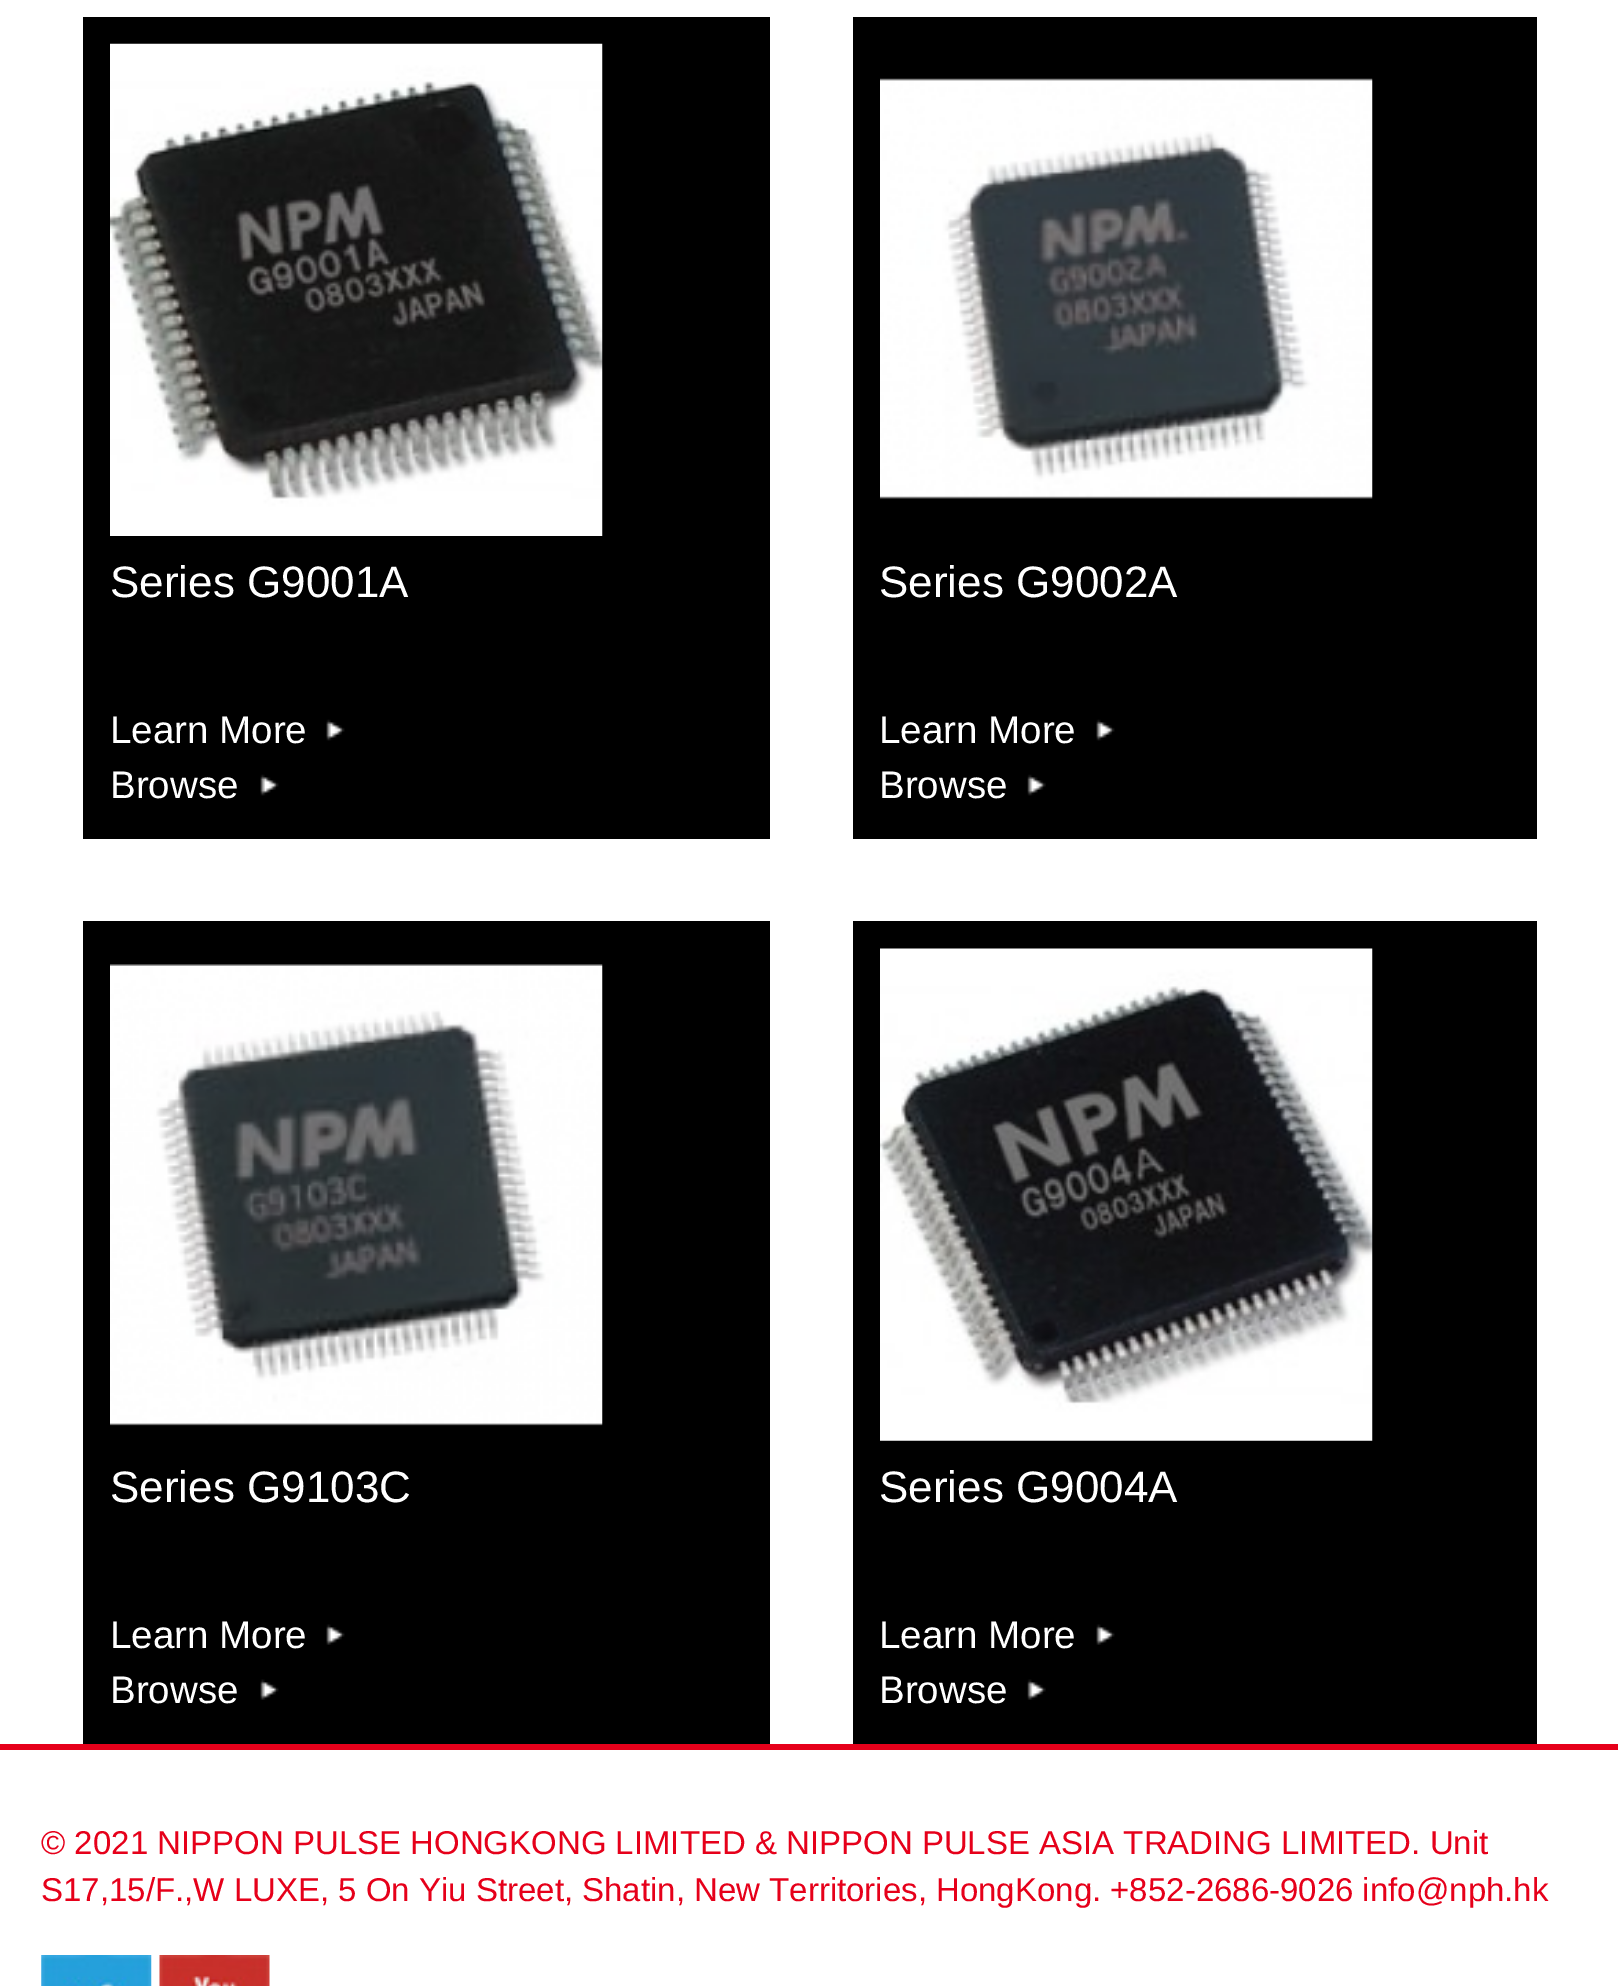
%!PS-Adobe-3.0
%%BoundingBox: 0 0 1618 1986
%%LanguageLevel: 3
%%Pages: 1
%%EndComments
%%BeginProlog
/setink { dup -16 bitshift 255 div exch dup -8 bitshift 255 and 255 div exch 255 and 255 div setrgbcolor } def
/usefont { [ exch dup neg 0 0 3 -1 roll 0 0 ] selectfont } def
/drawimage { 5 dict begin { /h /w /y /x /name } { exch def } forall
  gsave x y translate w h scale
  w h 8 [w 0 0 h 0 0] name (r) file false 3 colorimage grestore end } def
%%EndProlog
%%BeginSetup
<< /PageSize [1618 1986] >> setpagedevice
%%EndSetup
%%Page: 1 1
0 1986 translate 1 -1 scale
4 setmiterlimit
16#FFFFFF setink
0 0 1618 1986 rectfill
16#000000 setink
83 17 687 822 rectfill
(img1.raw) 110 43 493 493 drawimage
/LiberationSans-Regular 44 usefont
16#FFFFFF setink
110 597 moveto (Series G9001A) show
/LiberationSans-Regular 38.5 usefont
110 743 moveto (Learn More) show
(img2.raw) 326 719 19 22 drawimage
110 798 moveto (Browse) show
(img2.raw) 260 774 19 22 drawimage
16#000000 setink
853 17 684 822 rectfill
(img3.raw) 880 78 493 421 drawimage
/LiberationSans-Regular 44 usefont
16#FFFFFF setink
879 597 moveto (Series G9002A) show
/LiberationSans-Regular 38.5 usefont
879 743 moveto (Learn More) show
(img4.raw) 1096 719 19 22 drawimage
879 798 moveto (Browse) show
(img5.raw) 1027 774 19 22 drawimage
16#000000 setink
83 921 687 823 rectfill
(img6.raw) 110 964 493 462 drawimage
/LiberationSans-Regular 44 usefont
16#FFFFFF setink
110 1502 moveto (Series G9103C) show
/LiberationSans-Regular 38.5 usefont
110 1648 moveto (Learn More) show
(img7.raw) 326 1624 19 21 drawimage
110 1703 moveto (Browse) show
(img7.raw) 260 1679 19 21 drawimage
16#000000 setink
853 921 684 823 rectfill
(img8.raw) 880 948 493 493 drawimage
/LiberationSans-Regular 44 usefont
16#FFFFFF setink
879 1502 moveto (Series G9004A) show
/LiberationSans-Regular 38.5 usefont
879 1648 moveto (Learn More) show
(img9.raw) 1096 1624 19 21 drawimage
879 1703 moveto (Browse) show
(img10.raw) 1027 1679 19 21 drawimage
16#E6001A setink
0 1744 1618 6 rectfill
/LiberationSans-Regular 33 usefont
41 1854 moveto (© 2021 NIPPON PULSE HONGKONG LIMITED & NIPPON PULSE ASIA TRADING LIMITED. Unit) show
41 1901 moveto (S17,15/F.,W LUXE, 5 On Yiu Street, Shatin, New Territories, HongKong. +852-2686-9026 info@nph.hk) show
(img11.raw) 41 1955 111 31 drawimage
(img12.raw) 159 1955 111 31 drawimage
showpage
%%EOF
